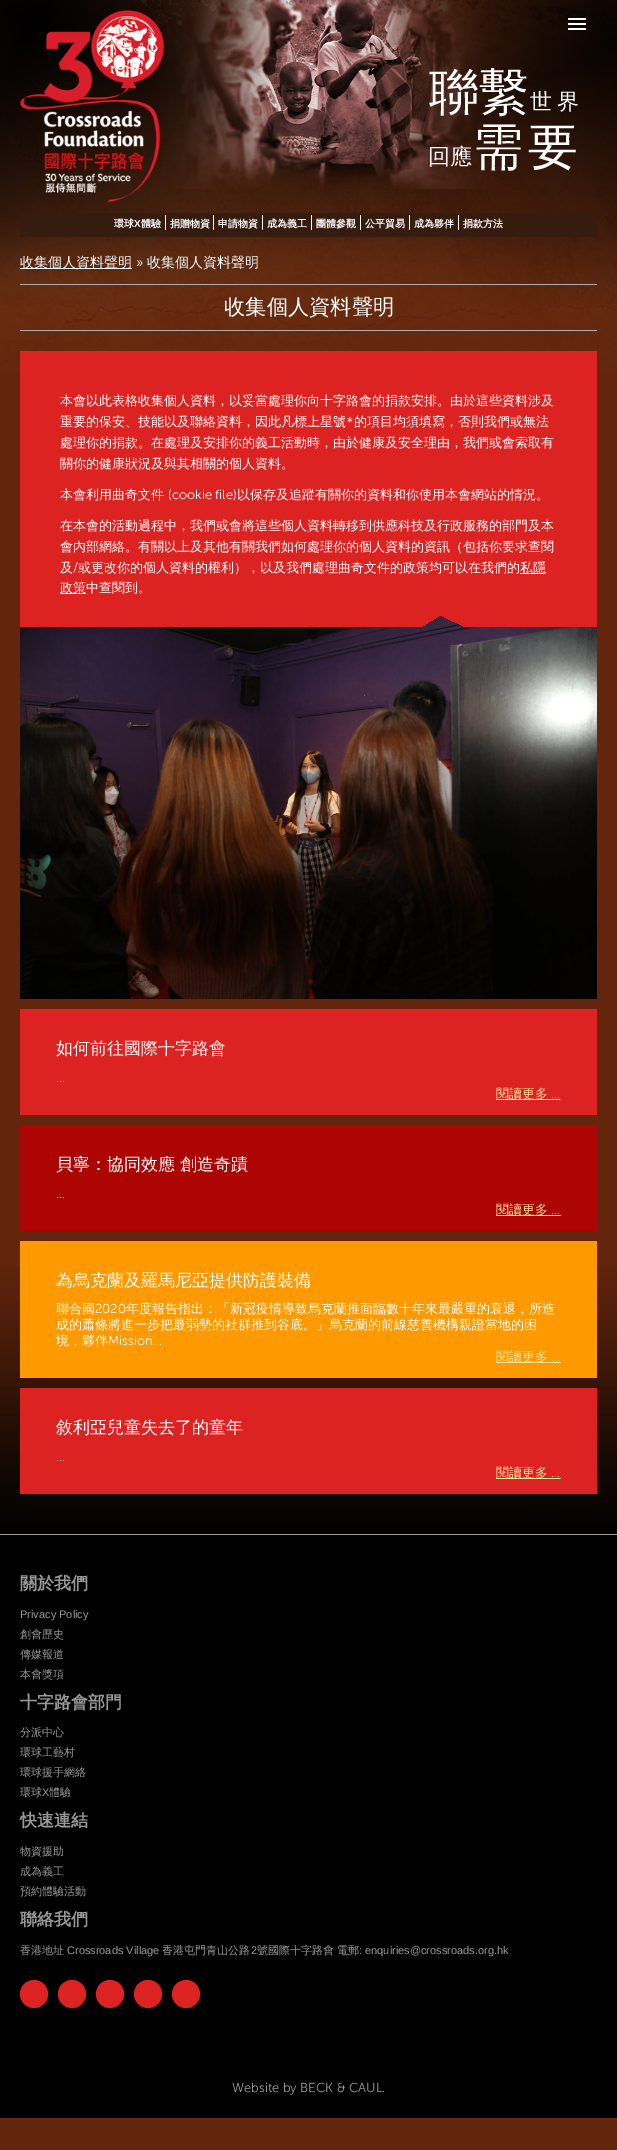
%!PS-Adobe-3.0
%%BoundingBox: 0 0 617 2150
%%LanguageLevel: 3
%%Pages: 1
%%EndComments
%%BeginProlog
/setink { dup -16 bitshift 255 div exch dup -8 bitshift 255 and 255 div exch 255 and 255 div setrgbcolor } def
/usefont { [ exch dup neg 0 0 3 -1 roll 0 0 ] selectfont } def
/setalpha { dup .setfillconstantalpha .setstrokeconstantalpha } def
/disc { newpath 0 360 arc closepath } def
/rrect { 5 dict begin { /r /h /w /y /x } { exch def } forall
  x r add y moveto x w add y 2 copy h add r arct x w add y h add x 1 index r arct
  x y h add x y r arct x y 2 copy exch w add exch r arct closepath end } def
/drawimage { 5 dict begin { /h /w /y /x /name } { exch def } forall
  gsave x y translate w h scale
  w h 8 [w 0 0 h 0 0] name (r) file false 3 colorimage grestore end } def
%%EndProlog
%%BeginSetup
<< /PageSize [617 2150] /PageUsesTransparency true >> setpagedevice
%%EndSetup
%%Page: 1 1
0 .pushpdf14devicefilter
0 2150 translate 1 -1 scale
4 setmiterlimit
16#63250C setink
0 0 617 2150 rectfill
(img1.raw) 0 0 617 373 drawimage
0.25 setalpha
16#000000 setink
568 19.5 moveto 567 21.5 571.5 21 571.5 21 curveto 582.5 21 lineto 582.5 21 587 21.5 586 19.5 curveto 585 20.5 578.5 20 577 20 curveto 575.5 20 569 20.5 568 19.5 curveto closepath fill
1 setalpha
16#FFFFFF setink
568 18 18 2 1 rrect fill
0.25 setalpha
16#000000 setink
568 24.5 moveto 567 26.5 571.5 26 571.5 26 curveto 582.5 26 lineto 582.5 26 587 26.5 586 24.5 curveto 585 25.5 578.5 25 577 25 curveto 575.5 25 569 25.5 568 24.5 curveto closepath fill
1 setalpha
16#FFFFFF setink
568 23 18 2 1 rrect fill
0.25 setalpha
16#000000 setink
568 29.5 moveto 567 31.5 571.5 31 571.5 31 curveto 582.5 31 lineto 582.5 31 587 31.5 586 29.5 curveto 585 30.5 578.5 30 577 30 curveto 575.5 30 569 30.5 568 29.5 curveto closepath fill
1 setalpha
16#FFFFFF setink
568 28 18 2 1 rrect fill
(img2.raw) 20 10 144 193 drawimage
/WenQuanYiZenHei-Medium 50 usefont
429 109 moveto (聯繫) show
/WenQuanYiZenHei-Medium 22 usefont
530 109 moveto 5 0 (世界) ashow
428 164 moveto (回應) show
/WenQuanYiZenHei-Medium 50 usefont
473 164 moveto 5 0 (需要) ashow
16#361B0F setink
20 213 577 24 rectfill
/WenQuanYiZenHei-Bold 10 usefont
16#FFFFFF setink
114 227 moveto (環球) show
/LiberationSans-Bold 10 usefont
134 227 moveto (X) show
/WenQuanYiZenHei-Bold 10 usefont
141 227 moveto (體驗) show
165 215 1 15 rectfill
170 227 moveto (捐贈物資) show
213 215 1 15 rectfill
218 227 moveto (申請物資) show
262 215 1 15 rectfill
267 227 moveto (成為義工) show
311 215 1 15 rectfill
316 227 moveto (團體參觀) show
360 215 1 15 rectfill
365 227 moveto (公平貿易) show
409 215 1 15 rectfill
414 227 moveto (成為夥伴) show
458 215 1 15 rectfill
463 227 moveto (捐款方法) show
(img3.raw) 0 1266 617 268 drawimage
16#F2F7FA setink
20 268 112 1 rectfill
/WenQuanYiZenHei-Medium 14 usefont
20 267 moveto (收集個人資料聲明) show
/MuseoSans-Light 14 usefont
136 267 moveto (») show
/WenQuanYiZenHei-Medium 14 usefont
147 267 moveto (收集個人資料聲明) show
16#B1ABAB setink
20 284 577 1 rectfill
20 330 577 1 rectfill
/WenQuanYiZenHei-Medium 21.25 usefont
16#FFFFFF setink
224 314 moveto (收集個人資料聲明) show
16#DD2222 setink
20 351 577 263 rectfill
/WenQuanYiZenHei-Medium 13 usefont
16#FFFFFF setink
[
    [(本會以此表格收集個人資料，以妥當處理你向十字路會的捐款安排。由於這些資料涉及) 60 405]
    [(重要的保安、技能以及聯絡資料，因此凡標上星號*的項目均須填寫，否則我們或無法) 60 426]
    [(處理你的捐款。在處理及安排你的義工活動時，由於健康及安全理由，我們或會索取有) 60 447]
    [(關你的健康狀況及與其相關的個人資料。) 60 468]
    [(本會利用曲奇文件) 60 499]
] { aload pop moveto show } forall
/MuseoSans-Light 13 usefont
168 499 moveto (\(cookie file\)) show
/WenQuanYiZenHei-Medium 13 usefont
[
    [(以保存及追蹤有關你的資料和你使用本會網站的情況。) 237 499]
    [(在本會的活動過程中，我們或會將這些個人資料轉移到供應科技及行政服務的部門及本) 60 530]
    [(會內部網絡。有關以上及其他有關我們如何處理你的個人資料的資訊（包括你要求查閱) 60 551]
    [(及) 60 572]
] { aload pop moveto show } forall
/MuseoSans-Light 13 usefont
73 572 moveto (/) show
/WenQuanYiZenHei-Medium 13 usefont
78 572 moveto (或更改你的個人資料的權利），以及我們處理曲奇文件的政策均可以在我們的) show
520 573 26 1 rectfill
520 572 moveto (私隱) show
60 593 26 1 rectfill
60 592 moveto (政策中查閱到。) show
(img5.raw) 20 616 577 383 drawimage
(img4.raw) 20 614 577 13 drawimage
16#DD2222 setink
20 1009 577 106 rectfill
/WenQuanYiZenHei-Medium 17 usefont
16#FFFFFF setink
56 1054 moveto (如何前往國際十字路會) show
/MuseoSans-Light 13 usefont
56 1082 moveto (...) show
16#FFE59D setink
496 1099 65 1 rectfill
/WenQuanYiZenHei-Medium 13 usefont
496 1098 moveto (閱讀更多) show
/MuseoSans-Light 13 usefont
551 1098 moveto (...) show
16#AD0404 setink
20 1125 577 106 rectfill
/WenQuanYiZenHei-Medium 17 usefont
16#FFFFFF setink
56 1170 moveto (貝寧：協同效應) show
180 1170 moveto (創造奇蹟) show
/MuseoSans-Light 13 usefont
56 1198 moveto (...) show
16#FFE59D setink
496 1215 65 1 rectfill
/WenQuanYiZenHei-Medium 13 usefont
496 1214 moveto (閱讀更多) show
/MuseoSans-Light 13 usefont
551 1214 moveto (...) show
16#FF9900 setink
20 1241 577 137 rectfill
/WenQuanYiZenHei-Medium 17 usefont
16#FFFFFF setink
56 1286 moveto (為烏克蘭及羅馬尼亞提供防護裝備) show
/WenQuanYiZenHei-Medium 13 usefont
56 1313 moveto (聯合國) show
/MuseoSans-Light 13 usefont
95 1313 moveto (2020) show
/WenQuanYiZenHei-Medium 13 usefont
[
    [(年度報告指出：「新冠疫情導致烏克蘭推面臨數十年來最嚴重的衰退，所造) 126 1313]
    [(成的蕭條將進一步把最弱勢的社群推到谷底。」烏克蘭的前線慈善機構親證當地的困) 56 1329]
    [(境，夥伴) 56 1345]
] { aload pop moveto show } forall
/MuseoSans-Light 13 usefont
108 1345 moveto (Mission...) show
16#FFE59D setink
496 1362 65 1 rectfill
/WenQuanYiZenHei-Medium 13 usefont
496 1361 moveto (閱讀更多) show
/MuseoSans-Light 13 usefont
551 1361 moveto (...) show
16#DD2222 setink
20 1388 577 106 rectfill
/WenQuanYiZenHei-Medium 17 usefont
16#FFFFFF setink
56 1433 moveto (敘利亞兒童失去了的童年) show
/MuseoSans-Light 13 usefont
56 1461 moveto (...) show
16#FFE59D setink
496 1478 65 1 rectfill
/WenQuanYiZenHei-Medium 13 usefont
496 1477 moveto (閱讀更多) show
/MuseoSans-Light 13 usefont
551 1477 moveto (...) show
16#000000 setink
0 1535 617 583 rectfill
16#999998 setink
0 1534 617 1 rectfill
/WenQuanYiZenHei-Bold 17 usefont
16#999999 setink
20 1589 moveto (關於我們) show
/LiberationSans-Regular 11 usefont
20 1618 moveto (Privacy Policy) show
/WenQuanYiZenHei-Medium 11 usefont
[
    [(創會歷史) 20 1638]
    [(傳媒報道) 20 1658]
    [(本會獎項) 20 1678]
] { aload pop moveto show } forall
/WenQuanYiZenHei-Bold 17 usefont
20 1708 moveto (十字路會部門) show
/WenQuanYiZenHei-Medium 11 usefont
[
    [(分派中心) 20 1736]
    [(環球工藝村) 20 1756]
    [(環球援手網絡) 20 1776]
    [(環球) 20 1796]
] { aload pop moveto show } forall
/LiberationSans-Regular 11 usefont
42 1796 moveto (X) show
/WenQuanYiZenHei-Medium 11 usefont
49 1796 moveto (體驗) show
/WenQuanYiZenHei-Bold 17 usefont
20 1826 moveto (快速連結) show
/WenQuanYiZenHei-Medium 11 usefont
[
    [(物資援助) 20 1855]
    [(成為義工) 20 1875]
    [(預約體驗活動) 20 1895]
] { aload pop moveto show } forall
/WenQuanYiZenHei-Bold 17 usefont
20 1925 moveto (聯絡我們) show
/WenQuanYiZenHei-Medium 11 usefont
20 1954 moveto (香港地址) show
/LiberationSans-Regular 11 usefont
67 1954 moveto (Crossroads Village) show
/WenQuanYiZenHei-Medium 11 usefont
162 1954 moveto (香港屯門青山公路) show
/LiberationSans-Regular 11 usefont
251 1954 moveto (2) show
/WenQuanYiZenHei-Medium 11 usefont
257 1954 moveto (號國際十字路會 電郵) show
/LiberationSans-Regular 11 usefont
359 1954 moveto (: enquiries@crossroads.org.hk) show
16#DD2222 setink
34 1994 14 disc fill
72 1994 14 disc fill
110 1994 14 disc fill
148 1994 14 disc fill
186 1994 14 disc fill
/MuseoSans-Light 13 usefont
16#999999 setink
232 2092 moveto (Website by BECK & CAUL.) show
.poppdf14devicefilter showpage
%%EOF
